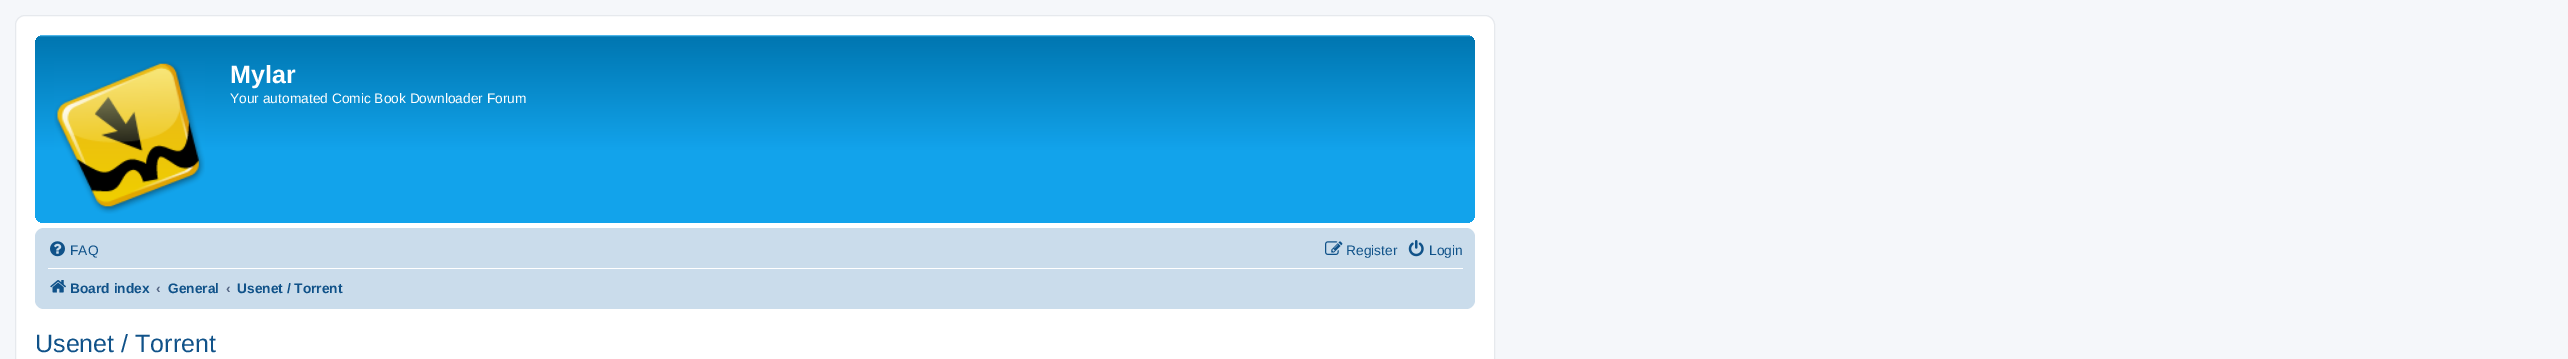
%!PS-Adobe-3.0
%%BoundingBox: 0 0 2568 359
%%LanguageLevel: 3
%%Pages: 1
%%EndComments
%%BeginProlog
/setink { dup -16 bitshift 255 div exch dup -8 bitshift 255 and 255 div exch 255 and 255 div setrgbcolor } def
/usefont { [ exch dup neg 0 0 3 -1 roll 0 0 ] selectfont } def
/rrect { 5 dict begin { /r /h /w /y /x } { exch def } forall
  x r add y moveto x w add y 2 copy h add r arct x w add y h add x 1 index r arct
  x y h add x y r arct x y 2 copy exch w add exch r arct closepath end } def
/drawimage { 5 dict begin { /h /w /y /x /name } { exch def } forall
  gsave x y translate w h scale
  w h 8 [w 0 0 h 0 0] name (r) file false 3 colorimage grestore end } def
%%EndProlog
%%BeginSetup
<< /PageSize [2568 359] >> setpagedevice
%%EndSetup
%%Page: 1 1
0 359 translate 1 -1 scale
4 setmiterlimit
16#F5F7FA setink
0 0 2568 359 rectfill
16#FFFFFF setink
15.5 15.5 1479 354 9.5 rrect gsave fill grestore
16#E6E9ED setink
stroke
gsave 35 35 1440 188 9 rrect clip newpath
<< /ShadingType 2 /ColorSpace /DeviceRGB /Coords [755 35 755 223] /Extend [true true] /Function << /FunctionType 3 /Domain [0 1] /Functions [<< /FunctionType 2 /Domain [0 1] /C0 [0.416 0.808 1] /C1 [0 0.463 0.694] /N 1 >> << /FunctionType 2 /Domain [0 1] /C0 [0 0.463 0.694] /C1 [0.071 0.639 0.922] /N 1 >> << /FunctionType 2 /Domain [0 1] /C0 [0.071 0.639 0.922] /C1 [0.071 0.639 0.922] /N 1 >>] /Bounds [0.01 0.61] /Encode [0 1 0 1 0 1] >> >> shfill grestore
(img1.raw) 54 61 151 153 drawimage
/LiberationSans-Bold 25 usefont
16#FFFFFF setink
230 83 moveto (Mylar) show
/LiberationSans-Regular 13.75 usefont
230 103 moveto (Your automated Comic Book Downloader Forum) show
16#CADCEB setink
35 228 1440 81 9 rrect fill
(img2.raw) 50 241 15 16 drawimage
16#105289 setink
70 255 moveto (FAQ) show
(img3.raw) 1325 241 18 14 drawimage
1346 255 moveto (Register) show
(img4.raw) 1408 240 16 17 drawimage
1429 255 moveto (Login) show
16#FFFFFF setink
48 268 1415 1 rectfill
(img5.raw) 50 280 16 13 drawimage
/LiberationSans-Bold 13.75 usefont
16#105289 setink
70 293 moveto (Board index) show
16#536482 setink
156 293 moveto (‹) show
16#105289 setink
168 293 moveto (General) show
16#536482 setink
226 293 moveto (‹) show
16#105289 setink
237 293 moveto (Usenet / Torrent) show
/LiberationSans-Regular 25 usefont
35 352 moveto (Usenet / Torrent) show
showpage
%%EOF
